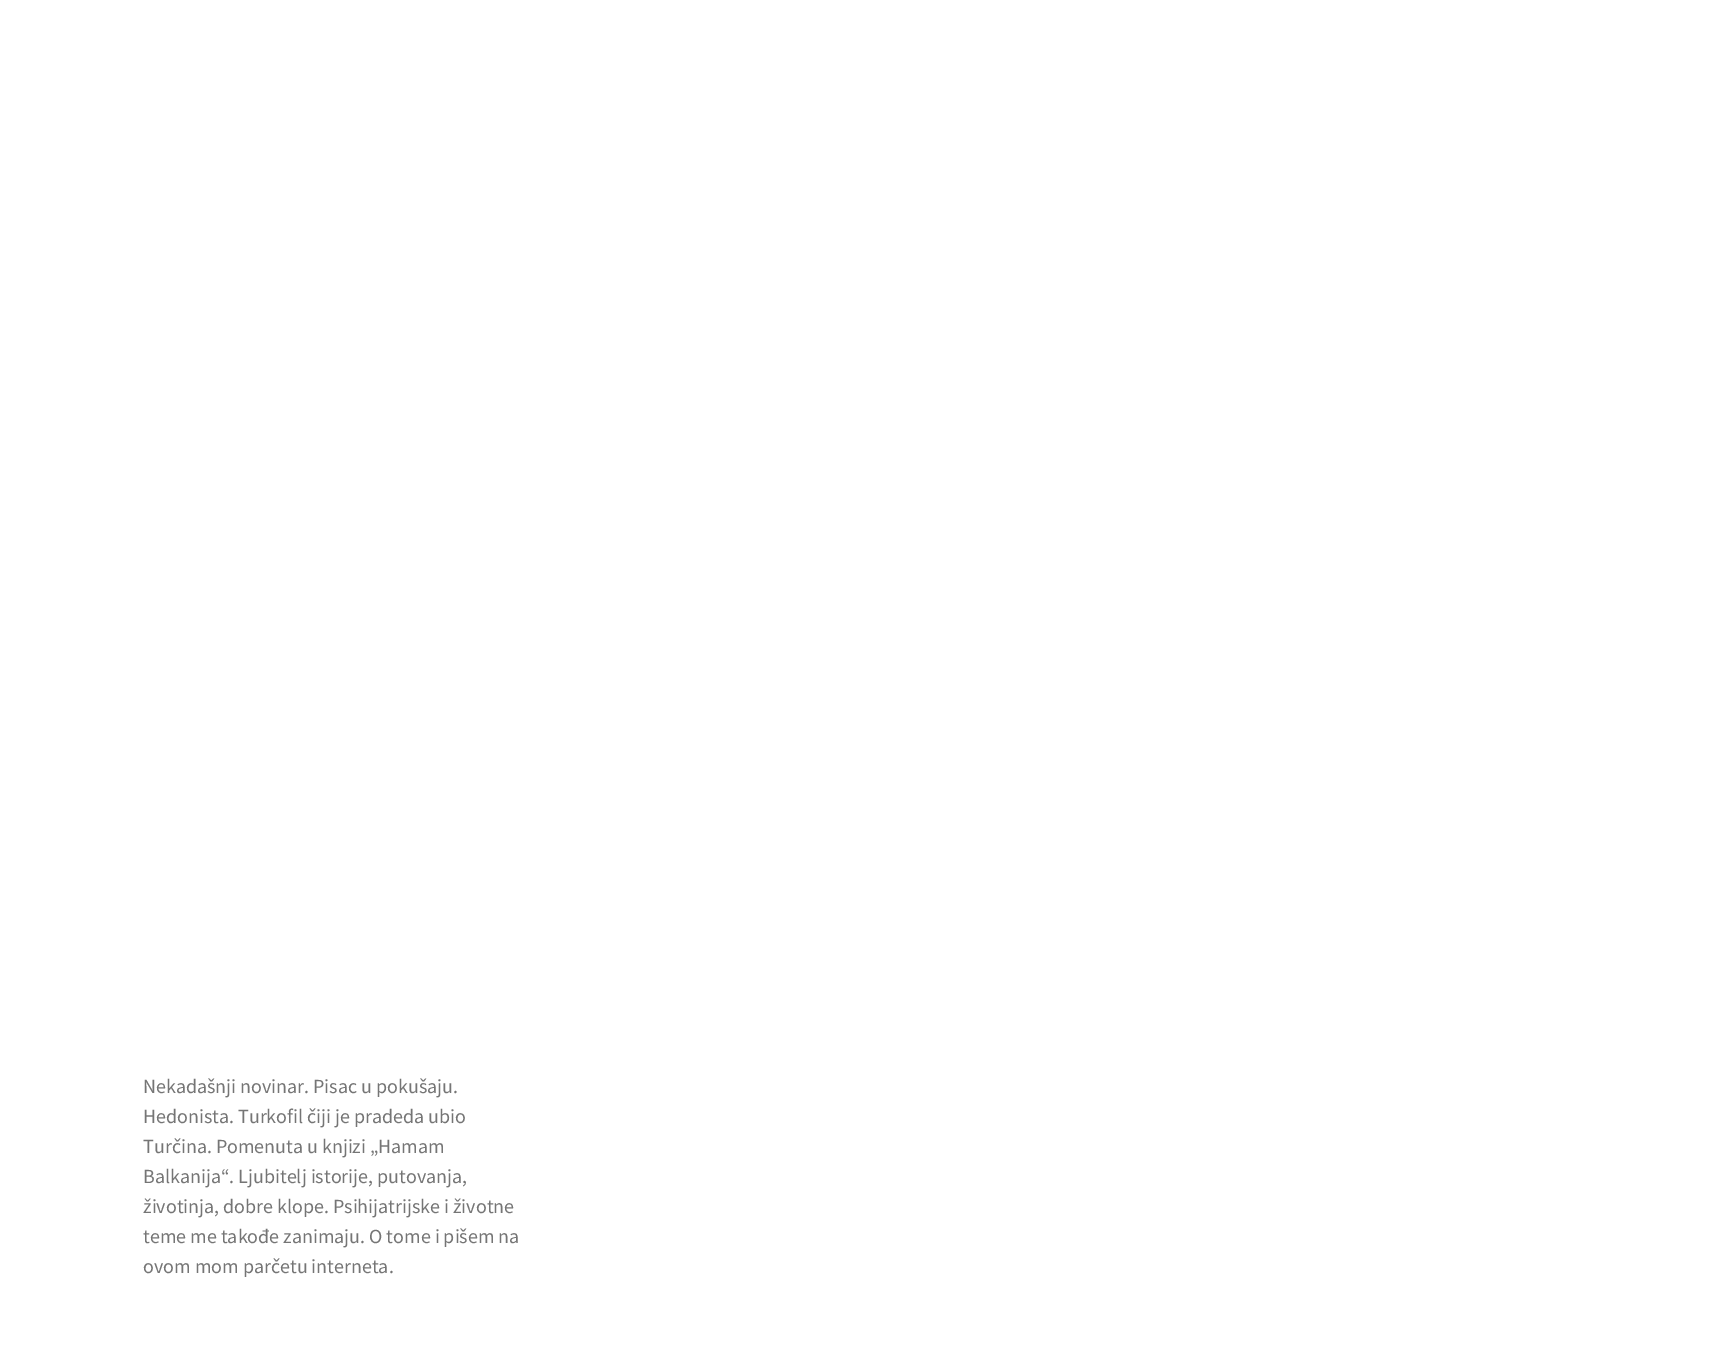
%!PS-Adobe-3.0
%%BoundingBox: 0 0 1710 1345
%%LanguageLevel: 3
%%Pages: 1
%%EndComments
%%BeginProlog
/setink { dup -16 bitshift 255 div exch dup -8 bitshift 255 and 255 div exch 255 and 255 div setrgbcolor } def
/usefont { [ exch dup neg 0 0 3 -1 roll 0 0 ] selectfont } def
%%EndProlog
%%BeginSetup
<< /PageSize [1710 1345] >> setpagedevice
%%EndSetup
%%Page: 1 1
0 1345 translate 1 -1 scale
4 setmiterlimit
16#FFFFFF setink
0 0 1710 1345 rectfill
/SourceSansPro-Regular 20 usefont
16#757575 setink
[
    [(Nekadašnji novinar. Pisac u pokušaju.) 143 1093]
    [(Hedonista. Turkofil čiji je pradeda ubio) 143 1123]
    [(Turčina. Pomenuta u knjizi „Hamam) 143 1153]
    [(Balkanija“. Ljubitelj istorije, putovanja,) 143 1183]
    [(životinja, dobre klope. Psihijatrijske i životne) 143 1213]
    [(teme me takođe zanimaju. O tome i pišem na) 143 1243]
    [(ovom mom parčetu interneta.) 143 1273]
] { aload pop moveto show } forall
showpage
%%EOF
